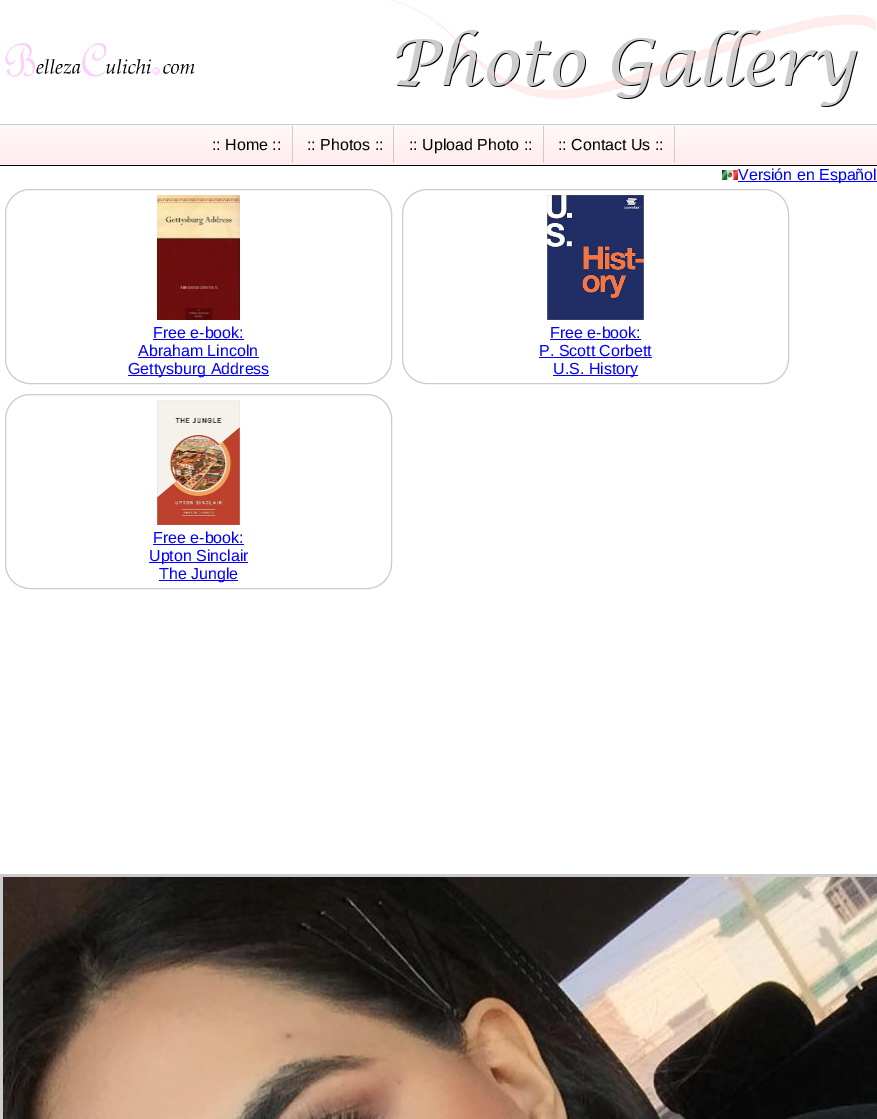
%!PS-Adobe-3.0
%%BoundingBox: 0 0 877 1119
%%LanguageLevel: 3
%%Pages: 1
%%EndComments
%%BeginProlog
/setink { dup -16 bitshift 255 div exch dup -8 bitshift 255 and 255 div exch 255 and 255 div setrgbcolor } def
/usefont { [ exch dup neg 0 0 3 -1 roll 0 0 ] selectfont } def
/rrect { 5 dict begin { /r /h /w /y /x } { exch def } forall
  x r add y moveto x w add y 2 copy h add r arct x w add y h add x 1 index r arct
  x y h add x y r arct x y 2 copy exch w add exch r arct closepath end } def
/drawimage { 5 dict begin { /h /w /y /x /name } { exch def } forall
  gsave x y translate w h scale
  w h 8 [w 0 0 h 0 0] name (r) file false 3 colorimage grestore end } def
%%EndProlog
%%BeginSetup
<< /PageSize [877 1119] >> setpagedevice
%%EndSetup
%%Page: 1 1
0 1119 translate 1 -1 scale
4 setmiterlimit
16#FFFFFF setink
0 0 877 1119 rectfill
(img1.raw) 0 40 199 40 drawimage
(img2.raw) 385 0 491 107 drawimage
gsave 0 125 moveto 877 125 lineto 877 165 lineto 0 165 lineto closepath clip newpath
<< /ShadingType 2 /ColorSpace /DeviceRGB /Coords [439 125 439 165] /Extend [true true] /Function << /FunctionType 2 /Domain [0 1] /C0 [1 0.976 0.976] /C1 [1 0.925 0.925] /N 1 >> >> shfill grestore
16#CCCCCC setink
0 124 877 1 rectfill
16#000000 setink
0 165 877 1 rectfill
/LiberationSans-Regular 16 usefont
212 150 moveto (:: Home ::) show
16#CCCCCC setink
292 126 1 37 rectfill
16#000000 setink
307 150 moveto (:: Photos ::) show
16#CCCCCC setink
393 126 1 37 rectfill
16#000000 setink
409 150 moveto (:: Upload Photo ::) show
16#CCCCCC setink
543 126 1 37 rectfill
16#000000 setink
558 150 moveto (:: Contact Us ::) show
16#CCCCCC setink
674 126 1 37 rectfill
(img3.raw) 722 170 16 10 drawimage
16#0000FF setink
738 181 139 1 rectfill
738 180 moveto (Versión en Español) show
16#CCCCCC setink
5.5 189.5 386 194 24.5 rrect stroke
(img4.raw) 157 195 83 125 drawimage
16#0000FF setink
153 338 moveto (Free e-book:) show
153 339 91 1 rectfill
138 356 moveto (Abraham Lincoln) show
138 357 121 1 rectfill
128 375 141 1 rectfill
128 374 moveto (Gettysburg Address) show
16#CCCCCC setink
402.5 189.5 386 194 24.5 rrect stroke
(img5.raw) 547 195 97 125 drawimage
16#0000FF setink
550 338 moveto (Free e-book:) show
550 339 91 1 rectfill
539 356 moveto (P. Scott Corbett) show
539 357 113 1 rectfill
553 375 85 1 rectfill
553 374 moveto (U.S. History) show
16#CCCCCC setink
5.5 394.5 386 194 24.5 rrect stroke
(img6.raw) 157 400 83 125 drawimage
16#0000FF setink
153 543 moveto (Free e-book:) show
153 544 91 1 rectfill
149 562 99 1 rectfill
149 561 moveto (Upton Sinclair) show
159 580 79 1 rectfill
159 579 moveto (The Jungle) show
16#CCCCCC setink
3 setlinewidth
1.5 875.5 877 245 rectstroke
(img7.raw) 3 877 874 242 drawimage
showpage
%%EOF
